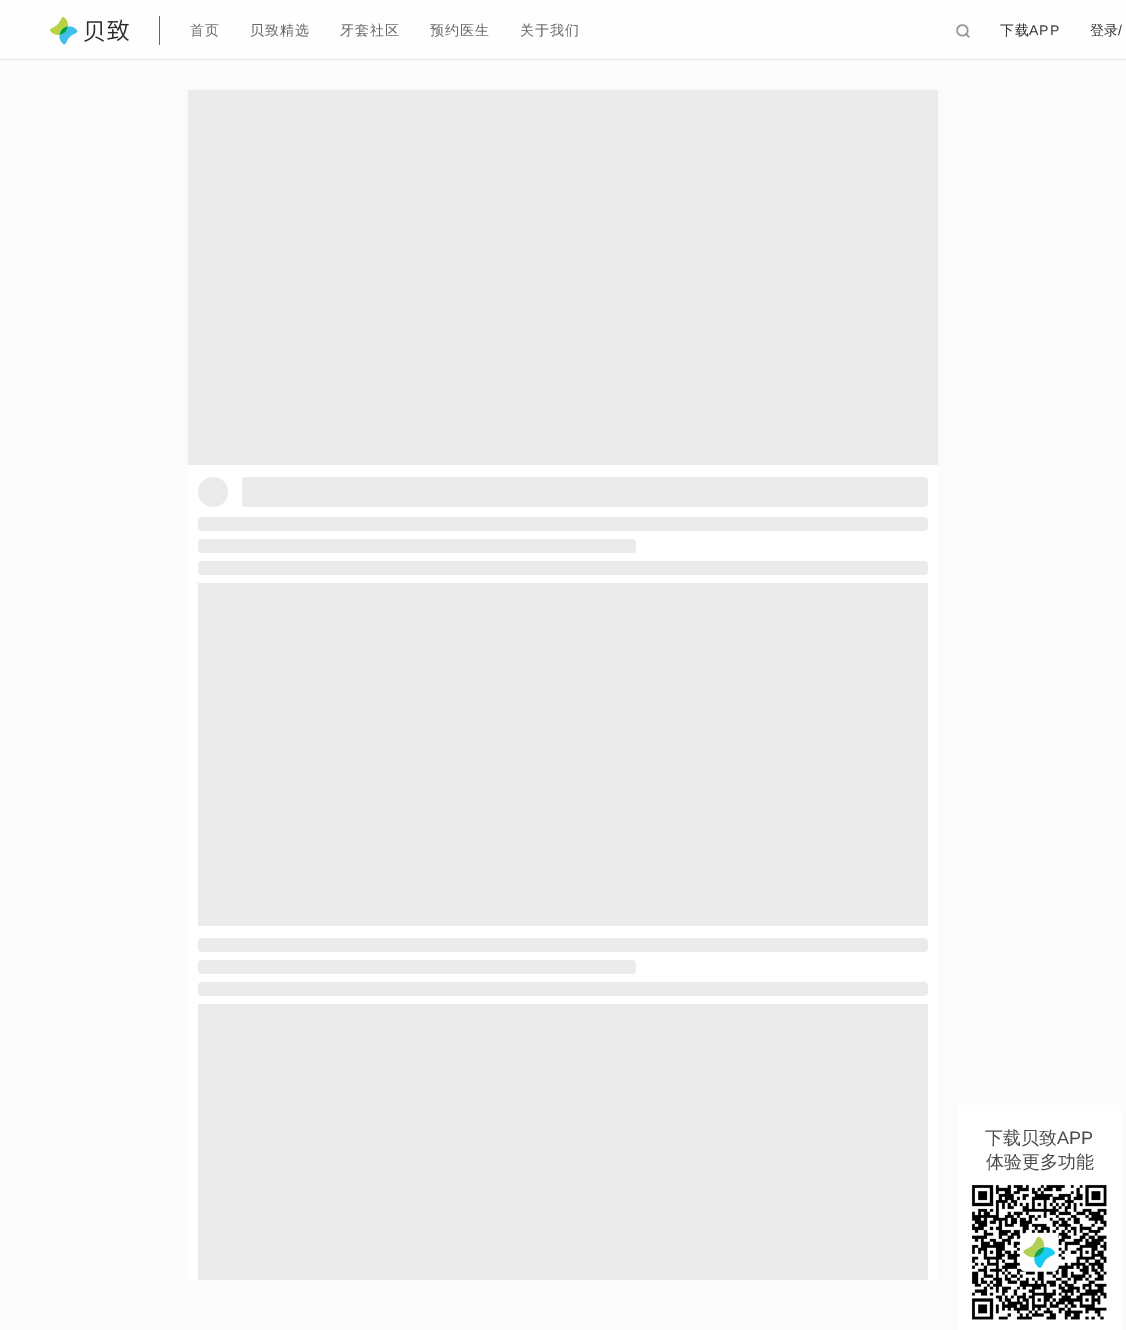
%!PS-Adobe-3.0
%%BoundingBox: 0 0 1126 1330
%%LanguageLevel: 3
%%Pages: 1
%%EndComments
%%BeginProlog
/setink { dup -16 bitshift 255 div exch dup -8 bitshift 255 and 255 div exch 255 and 255 div setrgbcolor } def
/usefont { [ exch dup neg 0 0 3 -1 roll 0 0 ] selectfont } def
/disc { newpath 0 360 arc closepath } def
/rrect { 5 dict begin { /r /h /w /y /x } { exch def } forall
  x r add y moveto x w add y 2 copy h add r arct x w add y h add x 1 index r arct
  x y h add x y r arct x y 2 copy exch w add exch r arct closepath end } def
/drawimage { 5 dict begin { /h /w /y /x /name } { exch def } forall
  gsave x y translate w h scale
  w h 8 [w 0 0 h 0 0] name (r) file false 3 colorimage grestore end } def
%%EndProlog
%%BeginSetup
<< /PageSize [1126 1330] >> setpagedevice
%%EndSetup
%%Page: 1 1
0 1330 translate 1 -1 scale
4 setmiterlimit
16#FCFBFC setink
0 0 1126 1330 rectfill
16#FEFEFE setink
0 0 1126 59 rectfill
16#E5E5E5 setink
0 59 1126 1 rectfill
(img1.raw) 50 17 79 28 drawimage
16#666666 setink
159 16 1 29 rectfill
/WenQuanYiZenHei-Medium 14 usefont
190 35 moveto 1 0 (首页) ashow
250 35 moveto 1 0 (贝致精选) ashow
340 35 moveto 1 0 (牙套社区) ashow
430 35 moveto 1 0 (预约医生) ashow
520 35 moveto 1 0 (关于我们) ashow
(img2.raw) 955 23 15 15 drawimage
16#333333 setink
1000 35 moveto 1 0 (下载) ashow
/LiberationSans-Regular 14 usefont
1029 35 moveto 1 0 (APP) ashow
/WenQuanYiZenHei-Medium 14 usefont
1090 35 moveto (登录) show
/LiberationSans-Regular 14 usefont
1118 35 moveto (/) show
16#FFFFFF setink
188 465 750 815 rectfill
16#EBEBEB setink
188 90 750 375 rectfill
213 492 15 disc fill
242 477 686 30 4 rrect fill
198 517 730 14 4 rrect fill
198 539 438 14 4 rrect fill
198 561 730 14 4 rrect fill
198 583 730 343 rectfill
198 938 730 14 4 rrect fill
198 960 438 14 4 rrect fill
198 982 730 14 4 rrect fill
198 1004 730 276 rectfill
16#FFFFFF setink
958 1105 163 225 rectfill
/WenQuanYiZenHei-Medium 18 usefont
16#4B4B4B setink
985 1144 moveto (下载贝致) show
/LiberationSans-Regular 18 usefont
1057 1144 moveto (APP) show
/WenQuanYiZenHei-Medium 18 usefont
986 1168 moveto (体验更多功能) show
(img3.raw) 971 1184 136 136 drawimage
showpage
%%EOF
